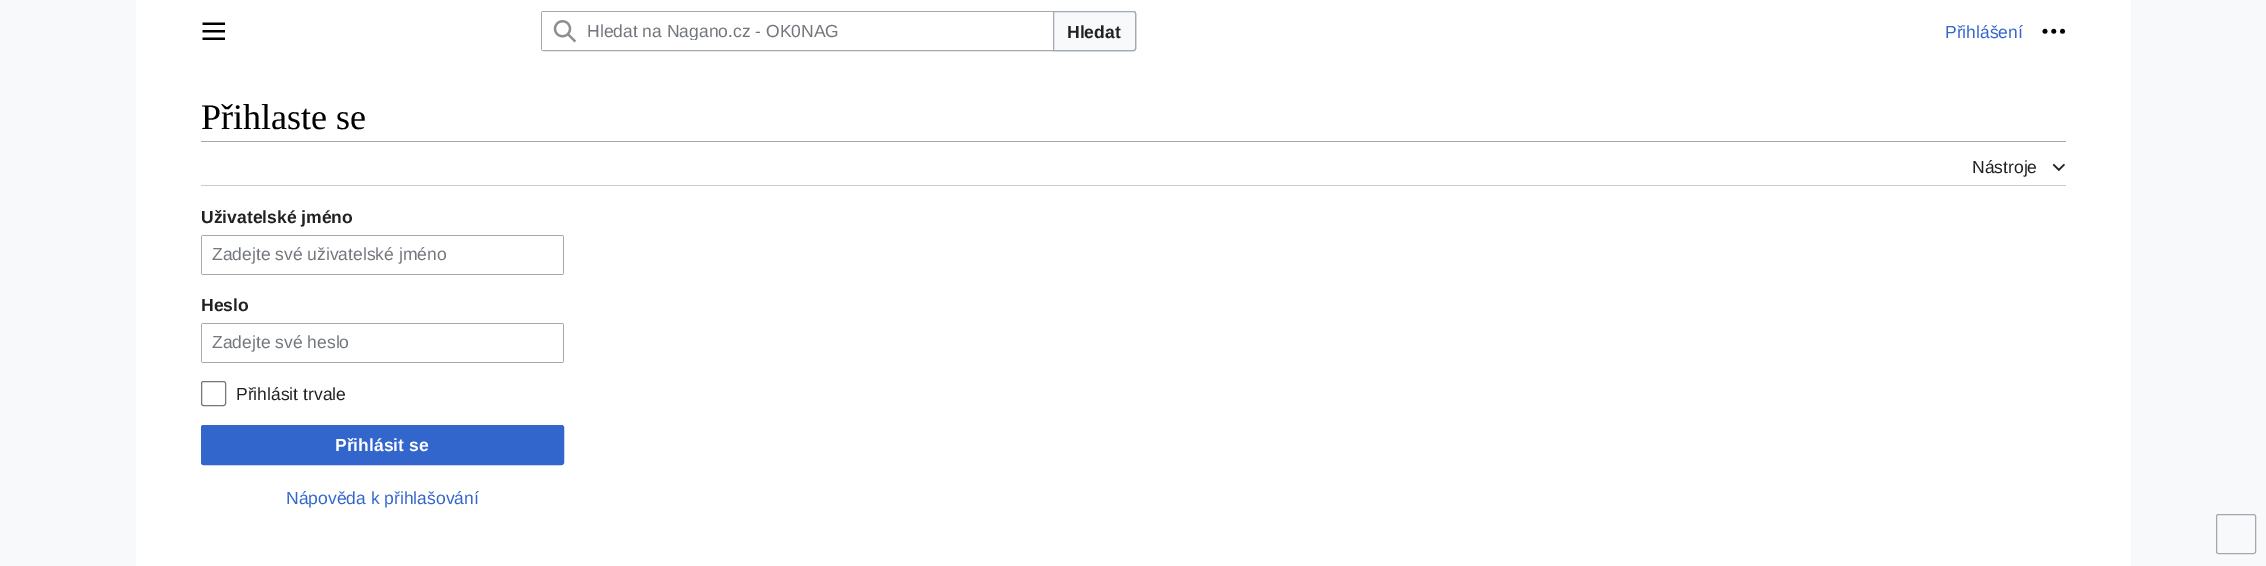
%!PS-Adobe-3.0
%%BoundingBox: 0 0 2266 566
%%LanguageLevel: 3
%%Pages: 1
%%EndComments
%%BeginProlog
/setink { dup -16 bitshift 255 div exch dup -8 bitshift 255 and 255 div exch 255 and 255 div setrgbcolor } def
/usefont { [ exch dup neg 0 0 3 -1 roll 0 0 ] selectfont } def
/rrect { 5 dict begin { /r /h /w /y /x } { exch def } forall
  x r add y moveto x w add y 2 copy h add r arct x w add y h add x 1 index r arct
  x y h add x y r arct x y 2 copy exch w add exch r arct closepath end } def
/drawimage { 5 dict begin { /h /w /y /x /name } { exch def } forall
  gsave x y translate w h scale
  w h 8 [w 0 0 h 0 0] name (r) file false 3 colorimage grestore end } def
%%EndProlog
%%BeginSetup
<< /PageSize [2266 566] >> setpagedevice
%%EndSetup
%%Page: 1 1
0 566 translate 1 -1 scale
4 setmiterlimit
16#F8F9FA setink
0 0 2266 566 rectfill
16#FFFFFF setink
136 0 1995 566 rectfill
(img1.raw) 202 22 23 18 drawimage
16#A2A9B1 setink
541.5 11.5 594 39 2 rrect stroke
16#F8F9FA setink
1053.5 11.5 moveto 1133.5 11.5 lineto 1134.5 11.5 1135.5 12.5 1135.5 13.5 curveto 1135.5 48.5 lineto 1135.5 49.5 1134.5 50.5 1133.5 50.5 curveto 1053.5 50.5 lineto closepath gsave fill grestore
16#A2A9B1 setink
stroke
16#FFFFFF setink
543.5 11 moveto 1054 11 lineto 1054 51 lineto 543.5 51 lineto 542 51 541 50 541 48.5 curveto 541 13.5 lineto 541 12 542 11 543.5 11 curveto closepath fill
16#A2A9B1 setink
544 11 moveto 542 11 541 12 541 14 curveto 541 48 lineto 541 50 542 51 544 51 curveto 1054 51 lineto 1054 11 lineto closepath 542 12 moveto 542 50 lineto 1053 50 lineto 1053 12 lineto closepath eofill
(img2.raw) 553 20 24 23 drawimage
gsave
588 20 455 20 rectclip
/LiberationSans-Regular 17.5 usefont
16#72777D setink
587 37 moveto (Hledat na Nagano.cz - OK0NAG) show
grestore
/LiberationSans-Bold 17.5 usefont
16#202122 setink
1067 38 moveto (Hledat) show
/LiberationSans-Regular 17.5 usefont
16#3366CC setink
1945 38 moveto (Přihlášení) show
(img3.raw) 2042 28 24 6 drawimage
/LiberationSerif-Regular 36 usefont
16#000000 setink
201 129 moveto (Přihlaste se) show
16#A2A9B1 setink
201 141 1865 1 rectfill
16#C8CCD1 setink
201 144 moveto 201 186 lineto 2066 186 lineto 2066 185 lineto 201 185 lineto closepath fill
/LiberationSans-Regular 17.5 usefont
16#202122 setink
1972 173 moveto (Nástroje) show
(img4.raw) 2052 163 13 9 drawimage
/LiberationSans-Bold 17.5 usefont
201 223 moveto (Uživatelské jméno) show
16#A2A9B1 setink
204 235 moveto 202 235 201 236 201 238 curveto 201 272 lineto 201 274 202 275 204 275 curveto 562 275 lineto 563 275 564 274 564 272 curveto 564 238 lineto 564 236 563 235 562 235 curveto closepath 202 236 moveto 202 274 lineto 563 274 lineto 563 236 lineto closepath eofill
/LiberationSans-Regular 17.5 usefont
16#72777D setink
212 260 moveto (Zadejte své uživatelské jméno) show
/LiberationSans-Bold 17.5 usefont
16#202122 setink
201 311 moveto (Heslo) show
16#A2A9B1 setink
204 323 moveto 202 323 201 324 201 326 curveto 201 360 lineto 201 362 202 363 204 363 curveto 562 363 lineto 563 363 564 362 564 360 curveto 564 326 lineto 564 324 563 323 562 323 curveto closepath 202 324 moveto 202 362 lineto 563 362 lineto 563 324 lineto closepath eofill
/LiberationSans-Regular 17.5 usefont
16#72777D setink
212 348 moveto (Zadejte své heslo) show
201.5 381.5 24 24 2 rrect stroke
16#202122 setink
236 400 moveto (Přihlásit trvale) show
16#3366CC setink
201.5 425.5 362 39 2 rrect gsave fill grestore
stroke
/LiberationSans-Bold 17.5 usefont
16#FFFFFF setink
335 451 moveto (Přihlásit se) show
/LiberationSans-Regular 17.5 usefont
16#3366CC setink
286 504 moveto (Nápověda k přihlašování) show
16#A2A9B1 setink
2216.5 514.5 39 39 2 rrect stroke
showpage
%%EOF
